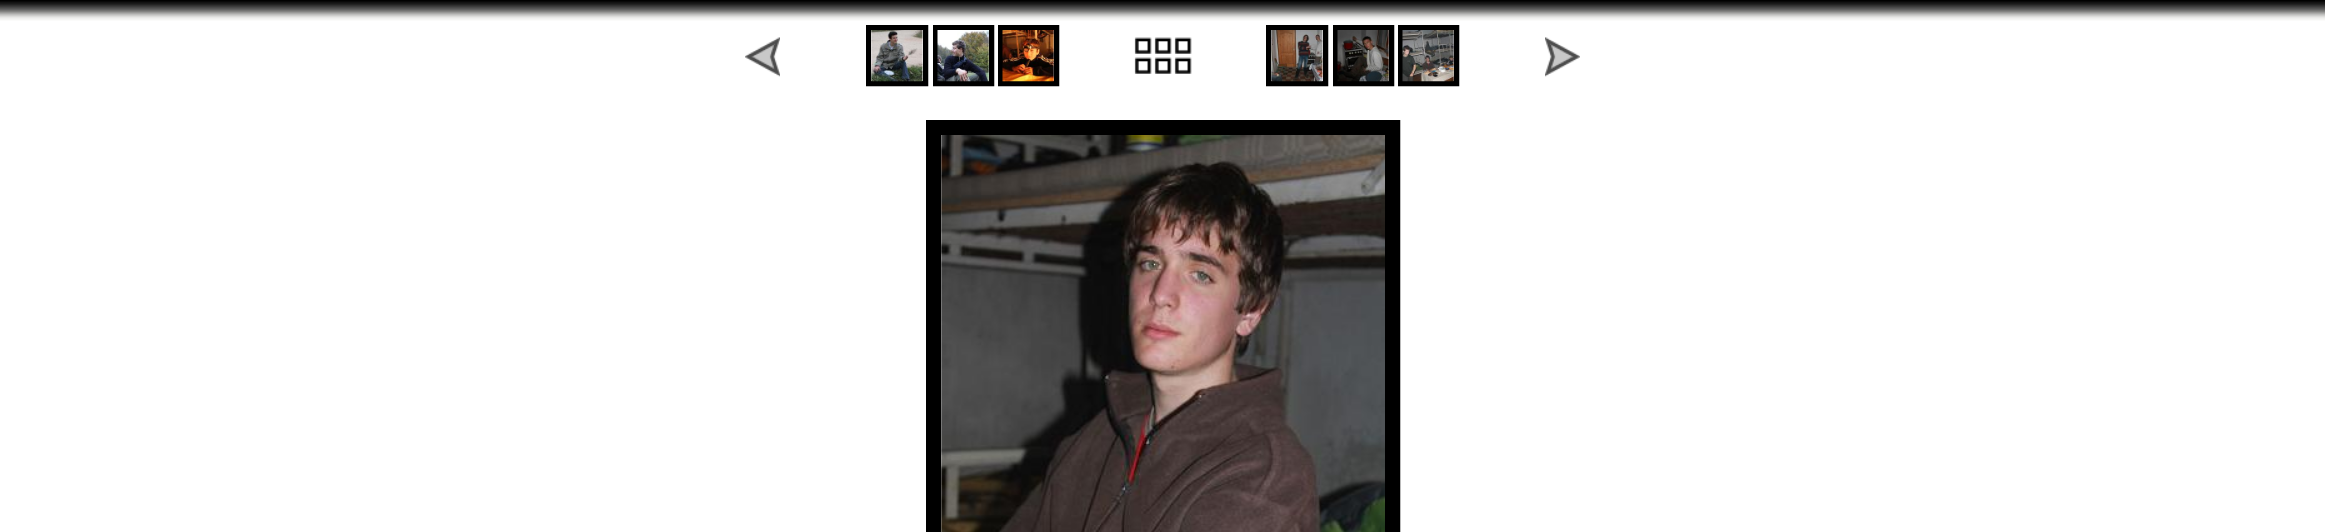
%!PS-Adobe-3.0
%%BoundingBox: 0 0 2325 532
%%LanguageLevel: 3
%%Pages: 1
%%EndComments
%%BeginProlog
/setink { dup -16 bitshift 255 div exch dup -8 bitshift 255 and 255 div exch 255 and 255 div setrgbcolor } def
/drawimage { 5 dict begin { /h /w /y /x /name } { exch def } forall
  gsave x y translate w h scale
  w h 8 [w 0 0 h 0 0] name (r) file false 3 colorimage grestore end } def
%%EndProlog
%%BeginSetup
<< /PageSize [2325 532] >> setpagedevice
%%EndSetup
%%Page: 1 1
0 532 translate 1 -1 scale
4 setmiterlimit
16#FFFFFF setink
0 0 2325 532 rectfill
(img1.raw) 0 0 2325 21 drawimage
(img2.raw) 745 37 35 40 drawimage
16#000000 setink
5 setlinewidth
868.5 27.5 57 56 rectstroke
935.5 27.5 56 56 rectstroke
1000.5 27.5 56 56 rectstroke
(img3.raw) 871 30 52 52 drawimage
(img4.raw) 937 30 52 52 drawimage
(img5.raw) 1002 30 52 52 drawimage
(img6.raw) 1134 37 58 37 drawimage
1268.5 27.5 57 56 rectstroke
1335.5 27.5 56 56 rectstroke
1400.5 27.5 56 56 rectstroke
(img7.raw) 1271 30 52 52 drawimage
(img8.raw) 1337 30 52 52 drawimage
(img9.raw) 1402 30 52 52 drawimage
(img10.raw) 1545 37 35 40 drawimage
15 setlinewidth
933.5 127.5 459 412 rectstroke
(img11.raw) 941 135 444 397 drawimage
showpage
%%EOF
